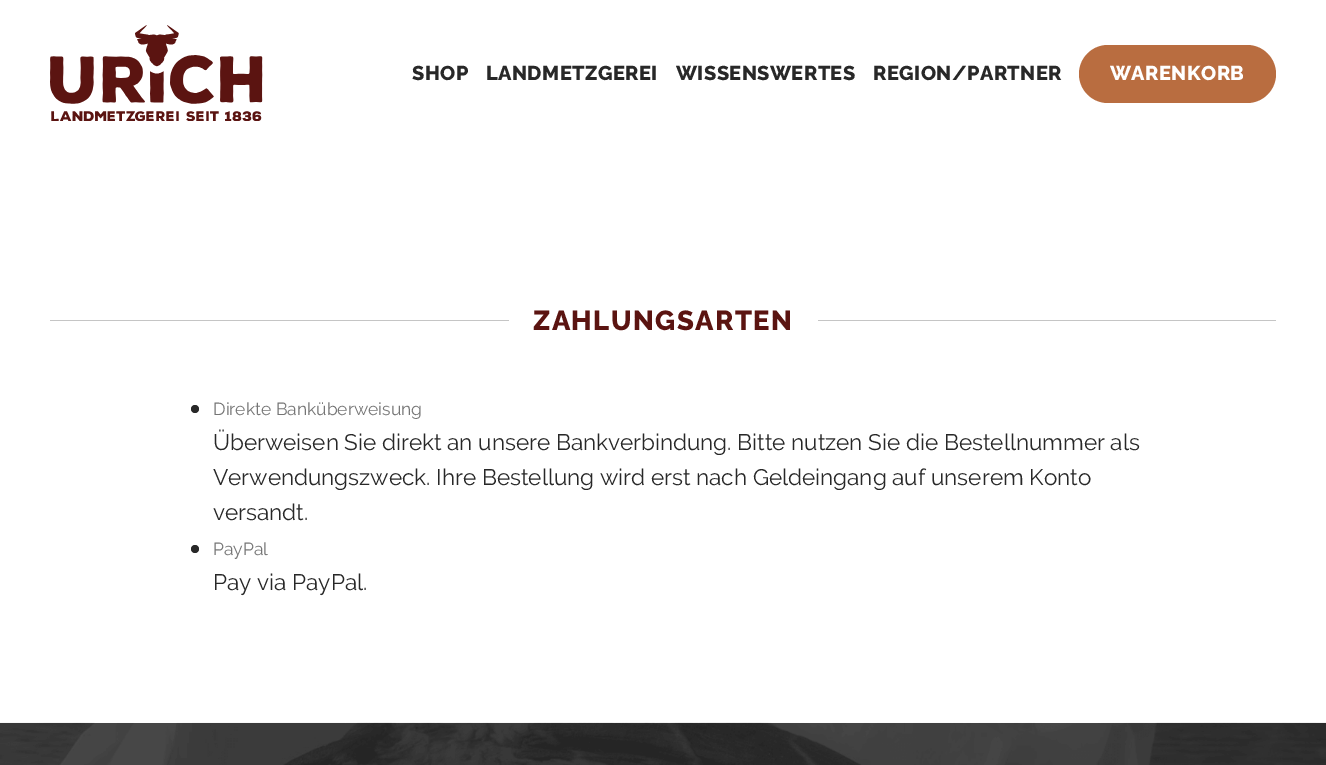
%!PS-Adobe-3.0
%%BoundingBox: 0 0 1326 765
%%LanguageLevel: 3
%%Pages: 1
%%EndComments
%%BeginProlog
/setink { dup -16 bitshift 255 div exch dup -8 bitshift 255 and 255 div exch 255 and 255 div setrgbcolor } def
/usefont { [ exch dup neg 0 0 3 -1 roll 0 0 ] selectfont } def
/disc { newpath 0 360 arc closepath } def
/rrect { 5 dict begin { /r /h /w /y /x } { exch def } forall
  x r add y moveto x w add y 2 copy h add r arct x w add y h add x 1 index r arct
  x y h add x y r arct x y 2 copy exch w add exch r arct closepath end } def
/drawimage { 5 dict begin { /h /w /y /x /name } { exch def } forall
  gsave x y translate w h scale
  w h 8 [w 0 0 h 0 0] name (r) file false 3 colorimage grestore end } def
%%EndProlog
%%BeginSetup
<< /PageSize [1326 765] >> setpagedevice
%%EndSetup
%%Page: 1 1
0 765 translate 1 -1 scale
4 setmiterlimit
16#FFFFFF setink
0 0 1326 765 rectfill
(img1.raw) 50 25 213 96 drawimage
/Raleway-ExtraBold 20 usefont
16#282828 setink
412 80 moveto 0.4 0 (SHOP) ashow
486 80 moveto 0.4 0 (LANDMETZGEREI) ashow
676 80 moveto 0.4 0 (WISSENSWERTES) ashow
873 80 moveto 0.4 0 (REGION/PARTNER) ashow
16#B96D40 setink
1079 45 197 58 29 rrect fill
16#FFFFFF setink
1110 80 moveto 0.4 0 (WARENKORB) ashow
16#C5C5C5 setink
50 320 459 1 rectfill
/Raleway-ExtraBold 27.5 usefont
16#5B1411 setink
533 330 moveto 1.4 0 (ZAHLUNGSARTEN) ashow
16#C5C5C5 setink
818 320 458 1 rectfill
16#282828 setink
195 409 4 disc fill
/Raleway-Regular 17.5 usefont
16#757575 setink
213 415 moveto (Direkte Banküberweisung) show
/Raleway-Regular 22.5 usefont
16#282828 setink
[
    [(Überweisen Sie direkt an unsere Bankverbindung. Bitte nutzen Sie die Bestellnummer als) 213 450]
    [(Verwendungszweck. Ihre Bestellung wird erst nach Geldeingang auf unserem Konto) 213 485]
    [(versandt.) 213 520]
] { aload pop moveto show } forall
195 549 4 disc fill
/Raleway-Regular 17.5 usefont
16#757575 setink
213 555 moveto (PayPal) show
/Raleway-Regular 22.5 usefont
16#282828 setink
213 590 moveto (Pay via PayPal.) show
0 723 1326 42 rectfill
(img2.raw) 0 722 1326 43 drawimage
showpage
%%EOF
